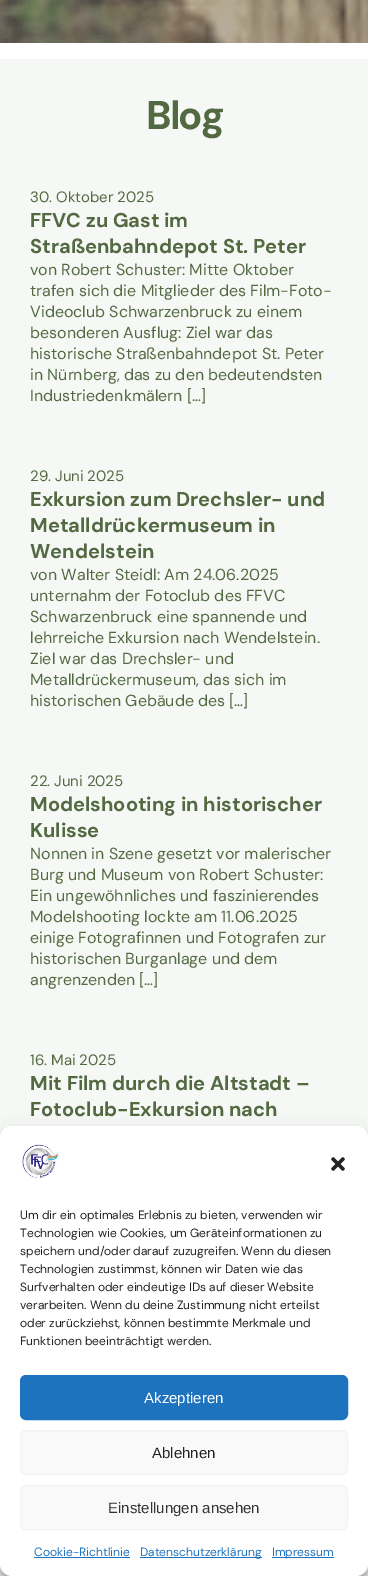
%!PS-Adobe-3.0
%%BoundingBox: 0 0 368 1576
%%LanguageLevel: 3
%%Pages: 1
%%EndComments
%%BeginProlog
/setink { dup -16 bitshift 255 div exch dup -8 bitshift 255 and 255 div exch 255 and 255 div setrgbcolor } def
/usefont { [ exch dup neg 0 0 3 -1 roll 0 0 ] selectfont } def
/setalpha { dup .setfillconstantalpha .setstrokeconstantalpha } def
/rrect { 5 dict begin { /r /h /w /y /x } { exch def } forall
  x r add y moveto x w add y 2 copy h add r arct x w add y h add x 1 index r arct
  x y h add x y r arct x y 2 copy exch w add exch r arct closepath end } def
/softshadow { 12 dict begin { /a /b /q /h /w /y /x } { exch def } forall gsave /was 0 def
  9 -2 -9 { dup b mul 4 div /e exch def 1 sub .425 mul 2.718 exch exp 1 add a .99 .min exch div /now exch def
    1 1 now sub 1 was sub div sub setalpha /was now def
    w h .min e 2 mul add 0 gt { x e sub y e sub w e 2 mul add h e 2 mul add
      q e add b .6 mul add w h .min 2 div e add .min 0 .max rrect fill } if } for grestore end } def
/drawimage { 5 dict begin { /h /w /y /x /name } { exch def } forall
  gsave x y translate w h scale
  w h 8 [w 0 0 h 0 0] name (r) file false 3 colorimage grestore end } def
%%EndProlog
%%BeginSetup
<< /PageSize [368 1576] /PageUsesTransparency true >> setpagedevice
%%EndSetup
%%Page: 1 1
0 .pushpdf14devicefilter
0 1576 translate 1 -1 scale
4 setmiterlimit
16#FFFFFF setink
0 0 368 1576 rectfill
(img1.raw) 0 0 368 43 drawimage
16#F6F8F5 setink
0 59 368 1517 rectfill
/DMSans-Bold 40 usefont
16#536942 setink
146 129 moveto -2 0 (Blog) ashow
/DMSans-Regular 15 usefont
30 202 moveto (30. Oktober 2025) show
/DMSans-Bold 20 usefont
30 227 moveto (FFVC zu Gast im) show
30 253 moveto (Straßenbahndepot St. Peter) show
/DMSans-Regular 16 usefont
[
    [(von Robert Schuster: Mitte Oktober) 30 275]
    [(trafen sich die Mitglieder des Film-Foto-) 30 296]
    [(Videoclub Schwarzenbruck zu einem) 30 317]
    [(besonderen Ausflug: Ziel war das) 30 338]
    [(historische Straßenbahndepot St. Peter) 30 359]
    [(in Nürnberg, das zu den bedeutendsten) 30 380]
    [(Industriedenkmälern […]) 30 401]
] { aload pop moveto show } forall
/DMSans-Regular 15 usefont
30 481 moveto (29. Juni 2025) show
/DMSans-Bold 20 usefont
[
    [(Exkursion zum Drechsler- und) 30 506]
    [(Metalldrückermuseum in) 30 532]
    [(Wendelstein) 30 558]
] { aload pop moveto show } forall
/DMSans-Regular 16 usefont
[
    [(von Walter Steidl: Am 24.06.2025) 30 580]
    [(unternahm der Fotoclub des FFVC) 30 601]
    [(Schwarzenbruck eine spannende und) 30 622]
    [(lehrreiche Exkursion nach Wendelstein.) 30 643]
    [(Ziel war das Drechsler- und) 30 664]
    [(Metalldrückermuseum, das sich im) 30 685]
    [(historischen Gebäude des […]) 30 706]
] { aload pop moveto show } forall
/DMSans-Regular 15 usefont
30 786 moveto (22. Juni 2025) show
/DMSans-Bold 20 usefont
30 811 moveto (Modelshooting in historischer) show
30 837 moveto (Kulisse) show
/DMSans-Regular 16 usefont
[
    [(Nonnen in Szene gesetzt vor malerischer) 30 859]
    [(Burg und Museum von Robert Schuster:) 30 880]
    [(Ein ungewöhnliches und faszinierendes) 30 901]
    [(Modelshooting lockte am 11.06.2025) 30 922]
    [(einige Fotografinnen und Fotografen zur) 30 943]
    [(historischen Burganlage und dem) 30 964]
    [(angrenzenden […]) 30 985]
] { aload pop moveto show } forall
/DMSans-Regular 15 usefont
30 1065 moveto (16. Mai 2025) show
/DMSans-Bold 20 usefont
30 1090 moveto (Mit Film durch die Altstadt –) show
30 1116 moveto (Fotoclub-Exkursion nach) show
16#000000 setink
0 1132 368 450 12 3 0.23 softshadow
0 1136 368 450 12 10 0.19 softshadow
16#FFFFFF setink
0 1126 368 450 12 rrect fill
(img2.raw) 22 1144 37 35 drawimage
(img3.raw) 331 1157 14 14 drawimage
/DMSans-Regular 12 usefont
16#222222 setink
[
    [(Um dir ein optimales Erlebnis zu bieten, verwenden wir) 20 1219]
    [(Technologien wie Cookies, um Geräteinformationen zu) 20 1237]
    [(speichern und/oder darauf zuzugreifen. Wenn du diesen) 20 1255]
    [(Technologien zustimmst, können wir Daten wie das) 20 1273]
    [(Surfverhalten oder eindeutige IDs auf dieser Website) 20 1291]
    [(verarbeiten. Wenn du deine Zustimmung nicht erteilst) 20 1309]
    [(oder zurückziehst, können bestimmte Merkmale und) 20 1327]
    [(Funktionen beeinträchtigt werden.) 20 1345]
] { aload pop moveto show } forall
16#1E73BE setink
20.5 1375.5 327 44 5.5 rrect gsave fill grestore
stroke
/LiberationSans-Regular 15 usefont
16#FFFFFF setink
144 1403 moveto (Akzeptieren) show
16#F9F9F9 setink
20.5 1430.5 327 44 5.5 rrect gsave fill grestore
16#F2F2F2 setink
stroke
16#222222 setink
152 1458 moveto (Ablehnen) show
16#F9F9F9 setink
20.5 1485.5 327 44 5.5 rrect gsave fill grestore
16#F2F2F2 setink
stroke
16#333333 setink
108 1513 moveto (Einstellungen ansehen) show
/DMSans-Regular 12 usefont
16#1E73BE setink
34 1556 moveto (Cookie-Richtlinie) show
34 1557 96 1 rectfill
140 1557 122 1 rectfill
140 1556 moveto (Datenschutzerklärung) show
272 1557 62 1 rectfill
272 1556 moveto (Impressum) show
.poppdf14devicefilter showpage
%%EOF
